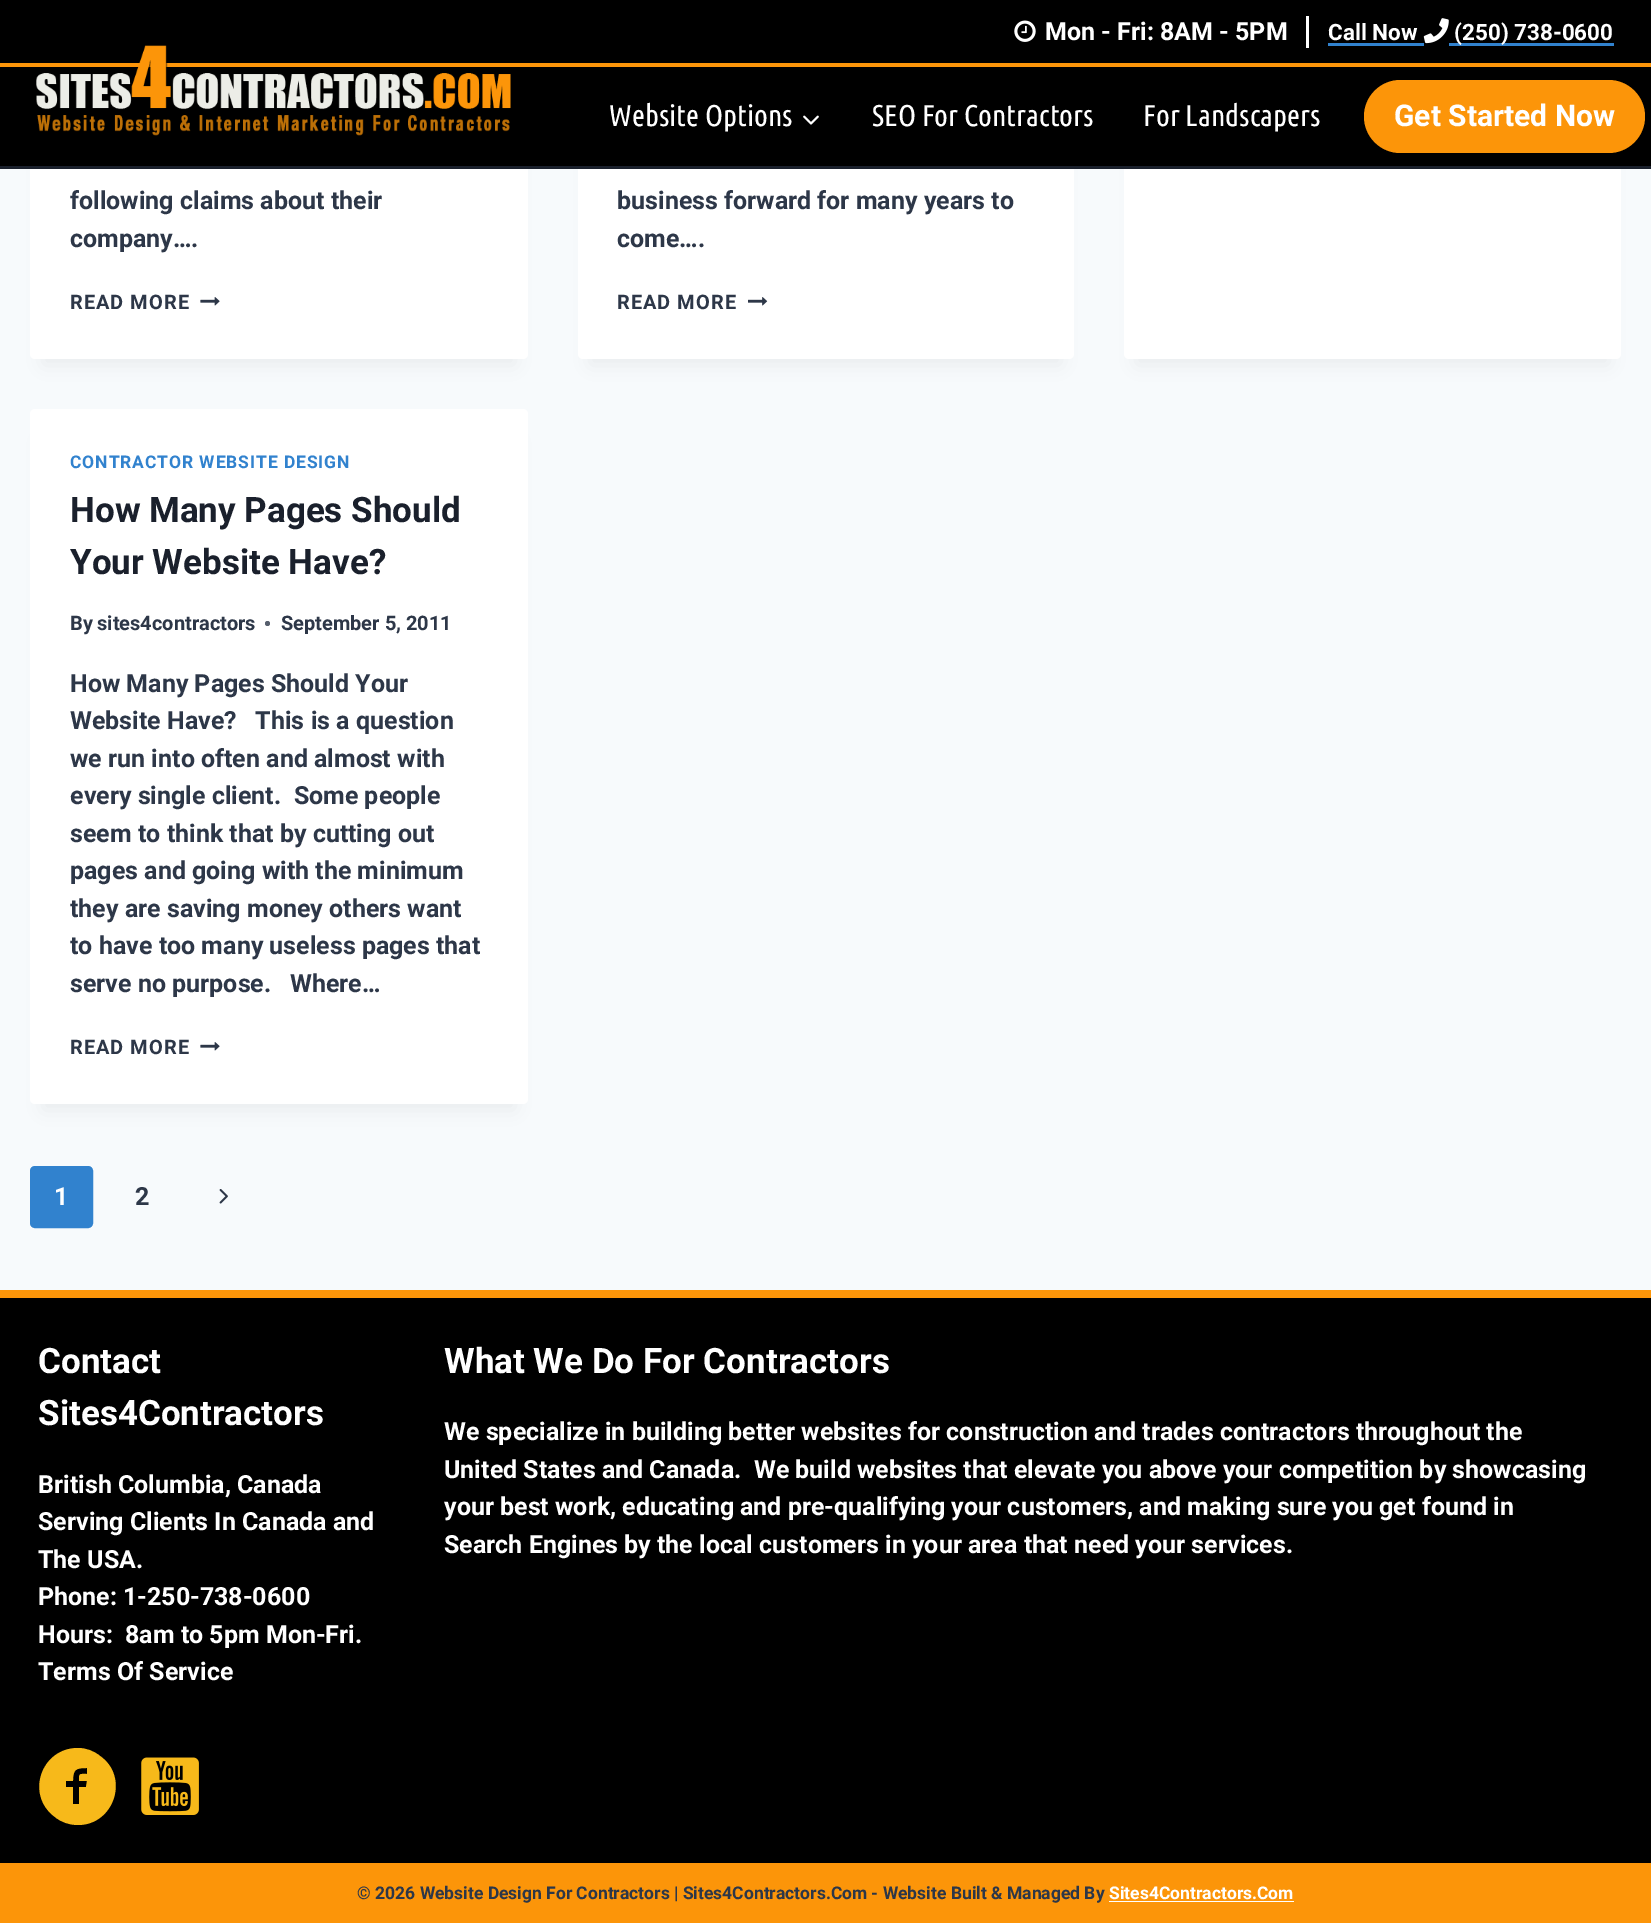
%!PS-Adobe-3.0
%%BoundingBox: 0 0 1651 1923
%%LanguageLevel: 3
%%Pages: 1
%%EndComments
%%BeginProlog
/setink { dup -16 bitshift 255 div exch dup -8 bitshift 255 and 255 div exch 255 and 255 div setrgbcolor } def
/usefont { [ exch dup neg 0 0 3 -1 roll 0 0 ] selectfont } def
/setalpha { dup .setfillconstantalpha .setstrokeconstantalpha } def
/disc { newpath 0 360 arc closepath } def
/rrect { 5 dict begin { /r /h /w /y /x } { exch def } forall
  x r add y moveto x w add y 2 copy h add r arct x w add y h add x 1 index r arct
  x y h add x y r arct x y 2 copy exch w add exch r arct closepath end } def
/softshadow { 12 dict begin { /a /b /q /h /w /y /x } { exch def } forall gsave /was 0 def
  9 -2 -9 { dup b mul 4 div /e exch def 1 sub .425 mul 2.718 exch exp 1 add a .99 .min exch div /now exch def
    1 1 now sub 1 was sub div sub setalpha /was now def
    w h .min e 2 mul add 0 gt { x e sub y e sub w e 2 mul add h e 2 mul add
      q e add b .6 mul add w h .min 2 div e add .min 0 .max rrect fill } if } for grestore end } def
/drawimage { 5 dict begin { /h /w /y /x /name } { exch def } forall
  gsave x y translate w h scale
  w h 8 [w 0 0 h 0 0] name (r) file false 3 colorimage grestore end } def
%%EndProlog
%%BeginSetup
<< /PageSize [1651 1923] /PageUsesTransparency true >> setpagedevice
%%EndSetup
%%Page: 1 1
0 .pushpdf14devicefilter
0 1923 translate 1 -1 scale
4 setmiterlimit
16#F7FAFC setink
0 0 1651 1923 rectfill
16#000000 setink
43 -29 472 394 0 9.5 0.05 softshadow
16#FFFFFF setink
30 -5 498 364 5 rrect fill
16#000000 setink
590 -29 471 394 0 9.5 0.05 softshadow
16#FFFFFF setink
578 -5 496 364 5 rrect fill
16#000000 setink
1136 -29 473 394 0 9.5 0.05 softshadow
16#FFFFFF setink
1124 -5 497 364 5 rrect fill
16#1A202C setink
0 166 1651 3 rectfill
16#000000 setink
0 0 1651 63 rectfill
(img1.raw) 1014 20 22 22 drawimage
/Roboto-Bold 25 usefont
16#FFFFFF setink
1045 40 moveto (Mon - Fri: 8AM - 5PM) show
1306 16 3 32 rectfill
/Roboto-Bold 22.5 usefont
1328 40 moveto (Call Now) show
16#3182CE setink
1328 43 96 3 rectfill
(img2.raw) 1423 18 26 26 drawimage
1449 43 165 3 rectfill
16#FFFFFF setink
1454 40 moveto (\(250\) 738-0600) show
16#000000 setink
0 67 1651 99 rectfill
16#FC9509 setink
0 63 1651 4 rectfill
(img3.raw) 36 45 475 91 drawimage
/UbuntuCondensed-Regular 30 usefont
16#FFFFFF setink
609 126 moveto (Website Options) show
(img4.raw) 803 115 16 10 drawimage
872 126 moveto (SEO For Contractors) show
1143 126 moveto (For Landscapers) show
16#FC9509 setink
1364 80 281 73 36.5 rrect fill
/Roboto-Bold 30 usefont
16#FFFFFF setink
1394 126 moveto (Get Started Now) show
/Roboto-Bold 25 usefont
16#2D3748 setink
70 209 moveto (following claims about their) show
70 247 moveto (company….) show
/Roboto-Bold 20 usefont
70 309 moveto 1 0 (READ MORE) ashow
(img5.raw) 200 297 20 9 drawimage
/Roboto-Bold 25 usefont
617 209 moveto (business forward for many years to) show
617 247 moveto (come….) show
/Roboto-Bold 20 usefont
617 309 moveto 1 0 (READ MORE) ashow
(img6.raw) 748 297 20 9 drawimage
16#000000 setink
43 440 472 670 0 9.5 0.05 softshadow
16#FFFFFF setink
30 409 498 695 5 rrect fill
/Roboto-Bold 17.5 usefont
16#3182CE setink
70 468 moveto 0.9 0 (CONTRACTOR WEBSITE DESIGN) ashow
/Roboto-Bold 35 usefont
16#1A202C setink
70 522 moveto (How Many Pages Should) show
70 574 moveto (Your Website Have?) show
/Roboto-Bold 20 usefont
16#2D3748 setink
70 630 moveto (By) show
97 630 moveto (sites4contractors) show
16#575F6D setink
267.5 623.5 2.5 disc fill
16#2D3748 setink
281 630 moveto (September 5, 2011) show
/Roboto-Bold 25 usefont
[
    [(How Many Pages Should Your) 70 692]
    [(Website Have?   This is a question) 70 729]
    [(we run into often and almost with) 70 767]
    [(every single client.  Some people) 70 804]
    [(seem to think that by cutting out) 70 842]
    [(pages and going with the minimum) 70 879]
    [(they are saving money others want) 70 917]
    [(to have too many useless pages that) 70 954]
    [(serve no purpose.   Where…) 70 992]
] { aload pop moveto show } forall
/Roboto-Bold 20 usefont
70 1054 moveto 1 0 (READ MORE) ashow
(img5.raw) 200 1042 20 9 drawimage
16#3182CE setink
31.5 1167.5 60 59 3.5 rrect gsave fill grestore
3 setlinewidth
stroke
/Roboto-Bold 25 usefont
16#FFFFFF setink
54 1205 moveto (1) show
16#2D3748 setink
135 1205 moveto (2) show
(img7.raw) 219 1189 9 15 drawimage
16#000000 setink
0 1298 1651 565 rectfill
16#FC9509 setink
0 1290 1651 8 rectfill
/Roboto-Bold 35 usefont
16#FFFFFF setink
38 1373 moveto (Contact) show
38 1425 moveto (Sites4Contractors) show
/Roboto-Bold 25 usefont
[
    [(British Columbia, Canada) 38 1493]
    [(Serving Clients In Canada and) 38 1530]
    [(The USA.) 38 1568]
    [(Phone: 1-250-738-0600) 38 1605]
    [(Hours:) 38 1643]
    [(8am to 5pm Mon-Fri.) 125 1643]
    [(Terms Of Service) 38 1680]
] { aload pop moveto show } forall
16#F7B91A setink
78 1748 moveto 41 1748 25 1795 55 1817 curveto 61 1822 69 1825 78 1825 curveto 114 1825 130 1777 100 1756 curveto 94 1751 86 1748 78 1748 curveto closepath 87 1774 moveto 79 1774 79 1773 79 1781 curveto 87 1781 lineto 86 1787 lineto 79 1787 lineto 79 1804 lineto 73 1804 lineto 73 1787 lineto 66 1787 lineto 66 1781 lineto 73 1781 lineto 73 1769 76 1768 87 1768 curveto closepath fill
(img8.raw) 141 1757 58 58 drawimage
/Roboto-Bold 35 usefont
16#FFFFFF setink
444 1373 moveto (What We Do For Contractors) show
/Roboto-Bold 25 usefont
[
    [(We specialize in building better websites for construction and trades contractors throughout the) 444 1440]
    [(United States and Canada.  We build websites that elevate you above your competition by showcasing) 444 1478]
    [(your best work, educating and pre-qualifying your customers, and making sure you get found in) 444 1515]
    [(Search Engines by the local customers in your area that need your services.) 444 1553]
] { aload pop moveto show } forall
16#FC9509 setink
0 1863 1651 60 rectfill
/Roboto-Bold 17.5 usefont
16#2D3748 setink
357 1899 moveto (© 2026 Website Design For Contractors | Sites4Contractors.Com - Website Built & Managed By) show
16#FFFFFF setink
1109 1899 moveto (Sites4Contractors.Com) show
1109 1901 185 1 rectfill
.poppdf14devicefilter showpage
%%EOF
